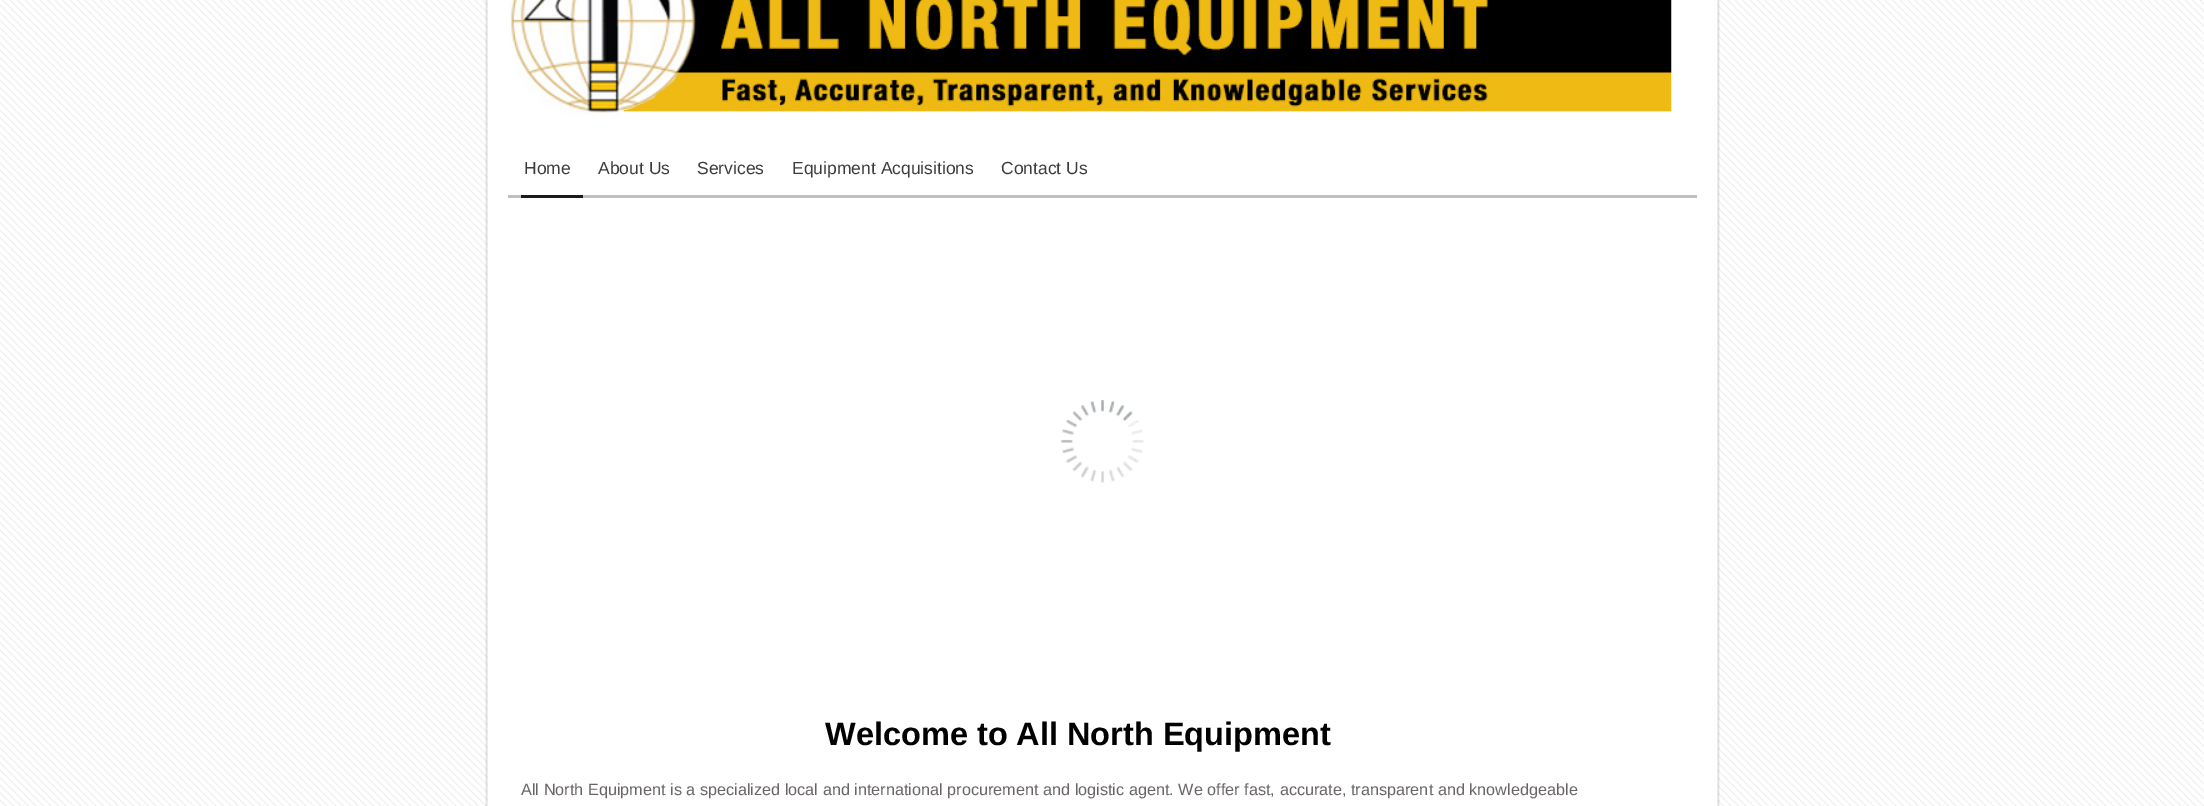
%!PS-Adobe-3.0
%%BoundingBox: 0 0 2204 806
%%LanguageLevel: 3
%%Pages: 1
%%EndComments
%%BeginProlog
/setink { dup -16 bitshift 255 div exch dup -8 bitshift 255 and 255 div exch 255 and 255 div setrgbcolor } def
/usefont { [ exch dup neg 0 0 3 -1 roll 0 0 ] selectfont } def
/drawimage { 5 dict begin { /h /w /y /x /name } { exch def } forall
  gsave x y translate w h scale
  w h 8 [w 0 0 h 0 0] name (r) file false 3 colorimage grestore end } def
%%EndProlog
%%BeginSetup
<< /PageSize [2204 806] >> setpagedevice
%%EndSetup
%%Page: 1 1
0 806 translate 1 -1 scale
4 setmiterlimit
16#FFFFFF setink
0 0 2204 806 rectfill
(img1.raw) 0 0 2204 806 drawimage
(img2.raw) 485 0 1235 806 drawimage
(img3.raw) 509 0 1163 115 drawimage
16#C0C0C0 setink
508 195 1189 3 rectfill
16#1B1B1B setink
521 195 62 3 rectfill
/LiberationSans-Regular 17.5 usefont
16#3B3C3C setink
[
    [(Home) 524 174]
    [(About Us) 598 174]
    [(Services) 697 174]
    [(Equipment Acquisitions) 792 174]
    [(Contact Us) 1001 174]
] { aload pop moveto show } forall
(img4.raw) 1061 400 83 83 drawimage
/LiberationSans-Bold 32.5 usefont
16#000000 setink
825 745 moveto (Welcome to All North Equipment) show
/LiberationSans-Regular 16.25 usefont
16#6A6565 setink
521 795 moveto (All North Equipment is a specialized local and international procurement and logistic agent. We offer fast, accurate, transparent and knowledgeable) show
showpage
%%EOF
